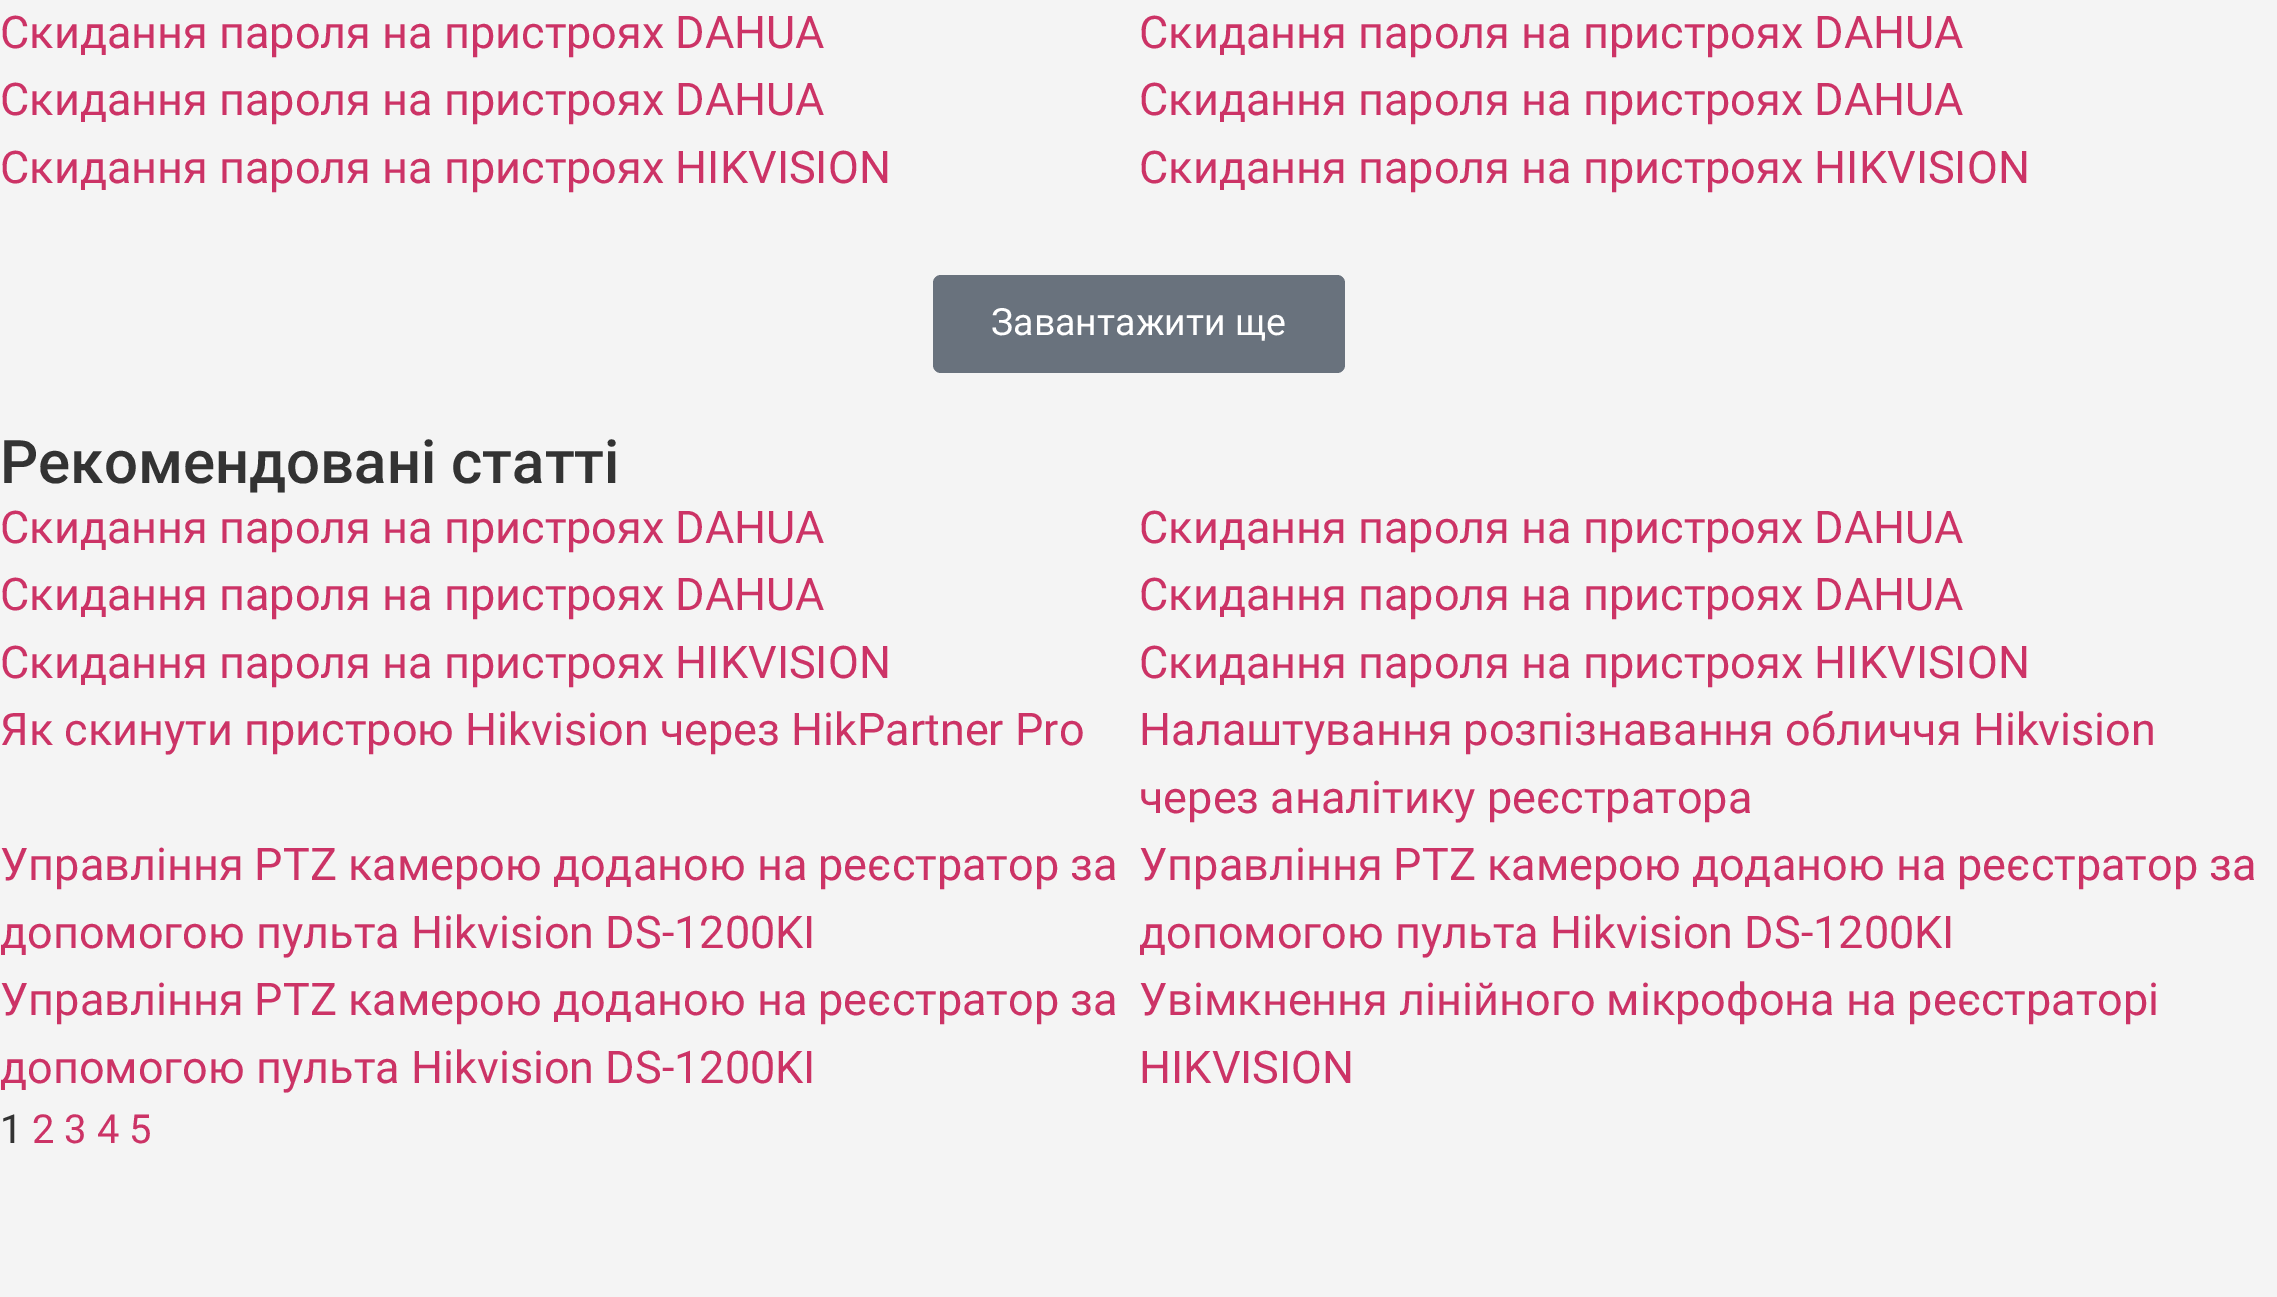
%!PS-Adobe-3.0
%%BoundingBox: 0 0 2277 1297
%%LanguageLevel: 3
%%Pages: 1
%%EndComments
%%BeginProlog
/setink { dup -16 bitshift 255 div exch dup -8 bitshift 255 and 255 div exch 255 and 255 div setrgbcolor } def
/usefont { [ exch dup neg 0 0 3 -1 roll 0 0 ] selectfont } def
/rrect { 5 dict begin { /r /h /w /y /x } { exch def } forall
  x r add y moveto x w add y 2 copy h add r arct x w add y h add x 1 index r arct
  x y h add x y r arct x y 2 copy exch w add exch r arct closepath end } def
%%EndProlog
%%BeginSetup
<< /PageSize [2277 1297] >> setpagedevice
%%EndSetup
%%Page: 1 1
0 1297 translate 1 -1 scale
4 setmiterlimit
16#F4F4F4 setink
0 0 2277 1297 rectfill
/Roboto-Regular 45 usefont
16#CC3366 setink
[
    [(Скидання пароля на пристроях DAHUA) 0 48]
    [(Скидання пароля на пристроях DAHUA) 1139 48]
    [(Скидання пароля на пристроях DAHUA) 0 115]
    [(Скидання пароля на пристроях DAHUA) 1139 115]
    [(Скидання пароля на пристроях HIKVISION) 0 183]
    [(Скидання пароля на пристроях HIKVISION) 1139 183]
] { aload pop moveto show } forall
16#69727D setink
933 275 412 98 8 rrect fill
/Roboto-Regular 37.5 usefont
16#FFFFFF setink
991 335 moveto (Завантажити ще) show
/Roboto-Medium 60 usefont
16#333333 setink
0 483 moveto (Рекомендованi статті) show
/Roboto-Regular 45 usefont
16#CC3366 setink
[
    [(Скидання пароля на пристроях DAHUA) 0 543]
    [(Скидання пароля на пристроях DAHUA) 1139 543]
    [(Скидання пароля на пристроях DAHUA) 0 610]
    [(Скидання пароля на пристроях DAHUA) 1139 610]
    [(Скидання пароля на пристроях HIKVISION) 0 678]
    [(Скидання пароля на пристроях HIKVISION) 1139 678]
    [(Як скинути пристрою Hikvision через HikPartner Pro) 0 745]
    [(Налаштування розпізнавання обличчя Hikvision) 1139 745]
    [(через аналітику реєстратора) 1139 813]
    [(Управління PTZ камерою доданою на реєстратор за) 0 880]
    [(допомогою пульта Hikvision DS-1200KI) 0 948]
    [(Управління PTZ камерою доданою на реєстратор за) 1139 880]
] { aload pop moveto show } forall
gsave
1140 830 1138 135 rectclip
1139 948 moveto (допомогою пульта Hikvision DS-1200KI) show
grestore
[
    [(Управління PTZ камерою доданою на реєстратор за) 0 1015]
    [(допомогою пульта Hikvision DS-1200KI) 0 1083]
    [(Увімкнення лінійного мікрофона на реєстраторі) 1139 1015]
    [(HIKVISION) 1139 1083]
] { aload pop moveto show } forall
/Roboto-Regular 40 usefont
16#333333 setink
0 1143 moveto (1) show
16#CC3366 setink
32 1143 moveto (2 3 4 5) show
showpage
%%EOF
